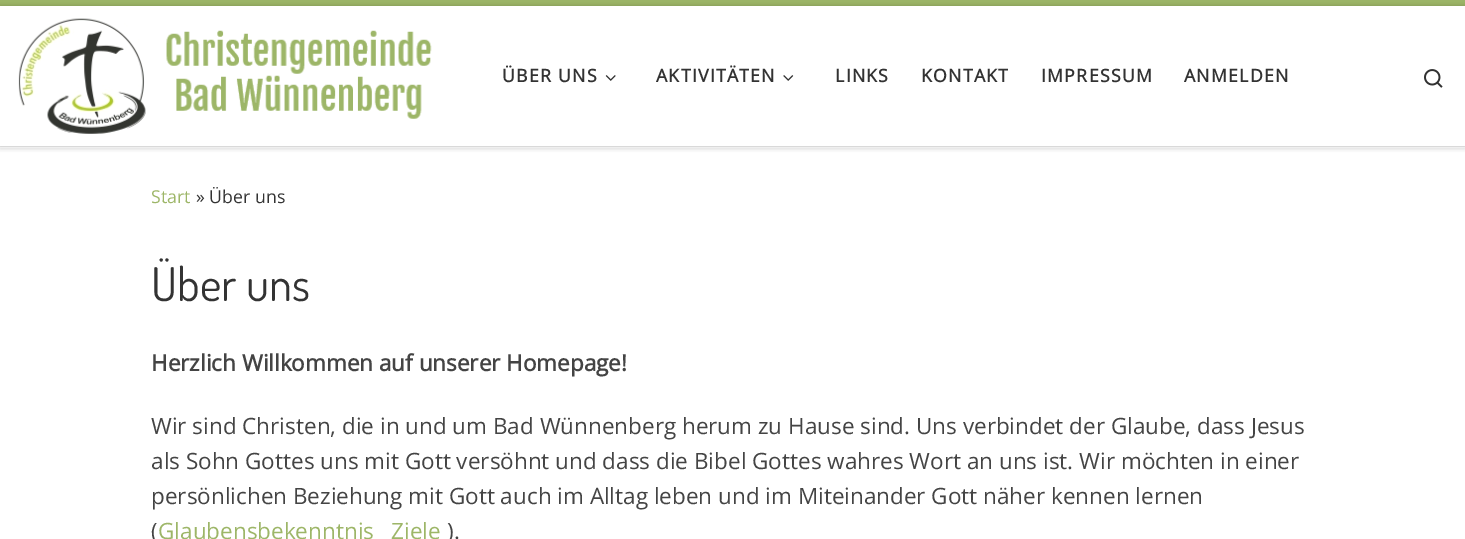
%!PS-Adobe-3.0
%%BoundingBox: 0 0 1465 539
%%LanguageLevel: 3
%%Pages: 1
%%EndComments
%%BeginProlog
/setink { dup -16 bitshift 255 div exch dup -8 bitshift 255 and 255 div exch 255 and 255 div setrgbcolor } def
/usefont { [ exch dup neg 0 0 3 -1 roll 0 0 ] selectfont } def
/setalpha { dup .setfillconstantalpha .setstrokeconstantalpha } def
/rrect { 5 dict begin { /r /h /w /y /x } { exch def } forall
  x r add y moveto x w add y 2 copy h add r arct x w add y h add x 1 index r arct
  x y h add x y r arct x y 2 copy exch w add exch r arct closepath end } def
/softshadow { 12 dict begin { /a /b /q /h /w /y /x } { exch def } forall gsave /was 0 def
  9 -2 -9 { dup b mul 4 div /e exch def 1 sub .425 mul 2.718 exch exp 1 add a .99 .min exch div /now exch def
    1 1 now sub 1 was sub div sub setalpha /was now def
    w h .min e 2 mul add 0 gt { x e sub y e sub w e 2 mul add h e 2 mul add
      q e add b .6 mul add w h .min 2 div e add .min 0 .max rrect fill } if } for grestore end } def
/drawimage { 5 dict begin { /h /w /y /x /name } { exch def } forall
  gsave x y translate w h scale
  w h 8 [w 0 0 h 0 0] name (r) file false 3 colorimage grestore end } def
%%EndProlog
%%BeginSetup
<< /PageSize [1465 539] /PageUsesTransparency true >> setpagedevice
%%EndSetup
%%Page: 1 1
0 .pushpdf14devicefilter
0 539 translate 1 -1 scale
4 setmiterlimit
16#FFFFFF setink
0 0 1465 539 rectfill
16#666666 setink
0 3 1465 147 0 1 0.08 softshadow
[
    [0 147 1465 1 16#FFFFFF]
    [0 0 1465 6 16#9DB668]
    [0 146 1465 1 16#ECECEC]
] { aload pop setink rectfill } forall
0.15 setalpha
[
    [0 146 1465 1 16#FFFFFF]
] { aload pop setink rectfill } forall
1 setalpha
16#000000 setink
0 6 1465 140 0 3 0.2 softshadow
16#FFFFFF setink
0 6 1465 140 rectfill
(img1.raw) 18 18 414 116 drawimage
/OpenSans-Bold 17.75 usefont
16#333333 setink
502 82 moveto 1.25 0 (ÜBER UNS) ashow
(img2.raw) 605 75 11 6 drawimage
656 82 moveto 1.25 0 (AKTIVITÄTEN) ashow
(img3.raw) 783 75 11 6 drawimage
835 82 moveto 1.25 0 (LINKS) ashow
921 82 moveto 1.25 0 (KONTAKT) ashow
1041 82 moveto 1.25 0 (IMPRESSUM) ashow
1184 82 moveto 1.25 0 (ANMELDEN) ashow
(img4.raw) 1424 69 19 19 drawimage
/OpenSans-Regular 17.75 usefont
16#9DB668 setink
151 203 moveto (Start) show
16#333333 setink
196 203 moveto (» Über uns) show
/Dosis-Regular 46.5 usefont
151 301 moveto (Über uns) show
/OpenSans-Bold 22.5 usefont
16#444444 setink
151 371 moveto (Herzlich Willkommen auf unserer Homepage!) show
/OpenSans-Regular 22.5 usefont
[
    [(Wir sind Christen, die in und um Bad Wünnenberg herum zu Hause sind. Uns verbindet der Glaube, dass Jesus) 151 434]
    [(als Sohn Gottes uns mit Gott versöhnt und dass die Bibel Gottes wahres Wort an uns ist. Wir möchten in einer) 151 469]
    [(persönlichen Beziehung mit Gott auch im Alltag leben und im Miteinander Gott näher kennen lernen) 151 504]
    [(\() 151 539]
] { aload pop moveto show } forall
16#9DB668 setink
158 539 moveto (Glaubensbekenntnis) show
391 539 moveto (Ziele) show
16#444444 setink
447 539 moveto (\).) show
.poppdf14devicefilter showpage
%%EOF
